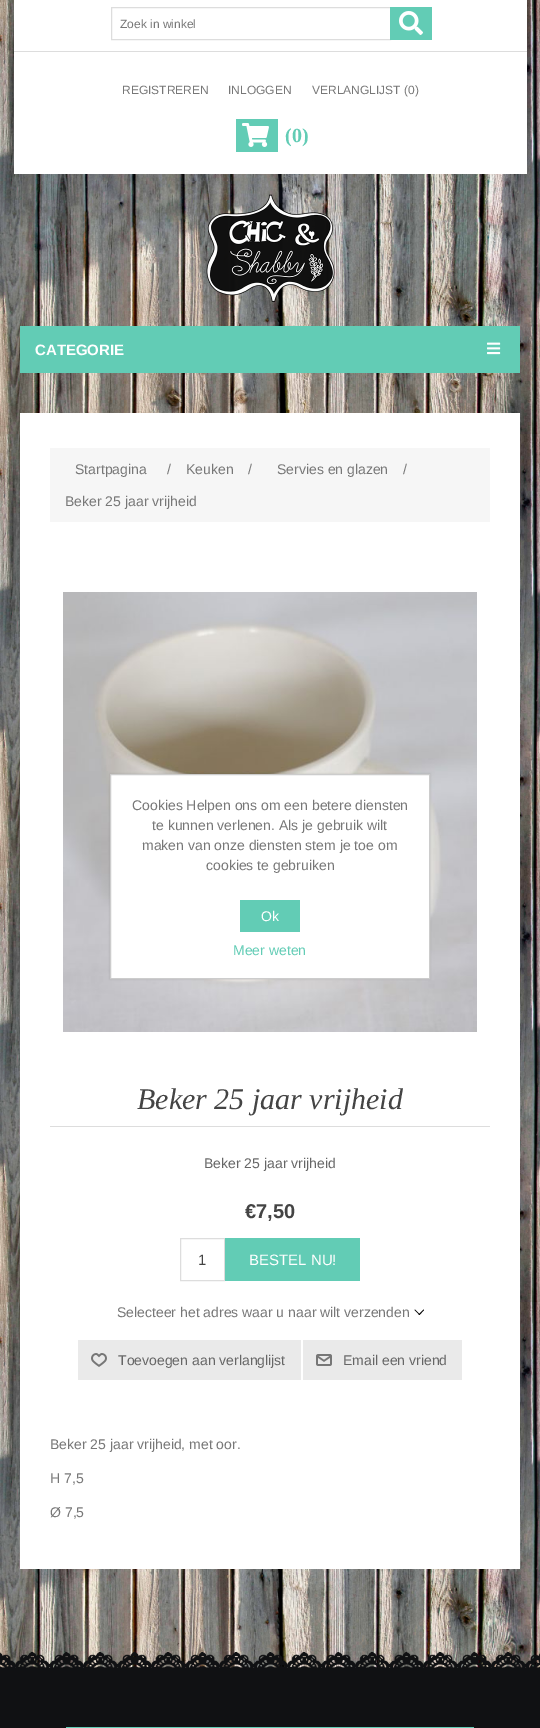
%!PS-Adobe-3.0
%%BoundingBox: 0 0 540 1728
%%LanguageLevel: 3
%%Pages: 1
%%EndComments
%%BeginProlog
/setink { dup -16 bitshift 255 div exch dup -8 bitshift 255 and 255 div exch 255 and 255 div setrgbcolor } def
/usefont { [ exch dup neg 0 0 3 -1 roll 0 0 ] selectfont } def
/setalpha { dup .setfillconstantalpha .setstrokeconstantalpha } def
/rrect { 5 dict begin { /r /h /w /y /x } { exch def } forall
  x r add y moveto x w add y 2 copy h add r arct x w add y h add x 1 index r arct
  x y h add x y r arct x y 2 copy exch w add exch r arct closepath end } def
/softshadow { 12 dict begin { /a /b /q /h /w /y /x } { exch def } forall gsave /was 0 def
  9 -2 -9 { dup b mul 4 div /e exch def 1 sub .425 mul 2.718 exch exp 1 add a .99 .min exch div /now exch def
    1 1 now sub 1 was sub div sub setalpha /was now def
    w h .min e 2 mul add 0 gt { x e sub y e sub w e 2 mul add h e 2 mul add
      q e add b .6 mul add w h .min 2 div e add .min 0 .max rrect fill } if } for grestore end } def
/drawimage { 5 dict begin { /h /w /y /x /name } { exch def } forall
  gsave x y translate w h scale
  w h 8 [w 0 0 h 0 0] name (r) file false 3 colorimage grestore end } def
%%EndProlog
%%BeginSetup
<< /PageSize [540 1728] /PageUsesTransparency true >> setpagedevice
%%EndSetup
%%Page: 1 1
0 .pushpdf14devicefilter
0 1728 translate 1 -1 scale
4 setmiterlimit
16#FFFFFF setink
0 0 540 1728 rectfill
(img1.raw) 0 0 540 1668 drawimage
14 0 513 174 rectfill
16#DDDDDD setink
14 51 513 1 rectfill
111.5 7.5 279 32 rectstroke
/LiberationSans-Regular 12 usefont
16#777777 setink
120 28 moveto (Zoek in winkel) show
16#62CCB5 setink
390 7 42 33 rectfill
(img2.raw) 399 11 24 24 drawimage
16#777777 setink
[
    [(REGISTREREN) 122 94]
    [(INLOGGEN) 228 94]
    [(VERLANGLIJST \(0\)) 312 94]
] { aload pop moveto show } forall
16#62CCB5 setink
236 119 42 33 rectfill
(img3.raw) 242 123 27 24 drawimage
/LiberationSerif-Bold 20 usefont
285 142 moveto (\(0\)) show
(img4.raw) 206 194 129 108 drawimage
20 326 500 47 rectfill
/LiberationSans-Bold 15 usefont
16#FFFFFF setink
35 355 moveto (CATEGORIE) show
(img5.raw) 487 342 14 13 drawimage
20 413 500 1156 rectfill
16#F6F6F6 setink
50 448 440 74 rectfill
/LiberationSans-Regular 14 usefont
16#777777 setink
[
    [(Startpagina) 75 474]
    [(/) 167 474]
    [(Keuken) 186 474]
    [(/) 248 474]
    [(Servies en glazen) 277 474]
    [(/) 403 474]
    [(Beker 25 jaar vrijheid) 65 506]
] { aload pop moveto show } forall
(img6.raw) 63 592 414 440 drawimage
16#DDDDDD setink
50 1126 440 1 rectfill
/LiberationSerif-Italic 30 usefont
16#444444 setink
137 1109 moveto (Beker 25 jaar vrijheid) show
/LiberationSans-Regular 14 usefont
16#666666 setink
204 1168 moveto (Beker 25 jaar vrijheid) show
/LiberationSans-Bold 20 usefont
16#444444 setink
245 1218 moveto (€7,50) show
16#DDDDDD setink
180.5 1238.5 44 42 rectstroke
/LiberationSans-Regular 15 usefont
16#444444 setink
198 1265 moveto (1) show
16#62CCB5 setink
225 1238 135 43 rectfill
16#FFFFFF setink
249 1265 moveto (BESTEL NU!) show
/LiberationSans-Regular 14 usefont
16#777777 setink
117 1317 moveto (Selecteer het adres waar u naar wilt verzenden) show
16#000000 setink
423.5 1309.5 moveto 424 1310 lineto 419.5 1315 lineto 418.5 1314.5 lineto closepath fill
415 1309.5 moveto 420 1314.5 lineto 419.5 1315 lineto 414.5 1310 lineto closepath fill
16#EAEAEA setink
78 1340 223 40 rectfill
(img7.raw) 91 1353 16 14 drawimage
16#666666 setink
118 1365 moveto (Toevoegen aan verlanglijst) show
16#EAEAEA setink
303 1340 159 40 rectfill
(img8.raw) 316 1354 16 12 drawimage
16#666666 setink
343 1365 moveto (Email een vriend) show
16#777777 setink
[
    [(Beker 25 jaar vrijheid, met oor.) 50 1449]
    [(H 7,5) 50 1483]
    [(Ø 7,5) 50 1517]
] { aload pop moveto show } forall
16#101113 setink
0 1669 540 59 rectfill
(img9.raw) 0 1652 540 17 drawimage
16#62CCB5 setink
66 1727 408 1 rectfill
16#000000 setink
110 774 320 205 0 1 0.15 softshadow
16#FFFFFF setink
110.5 774.5 moveto 429.5 774.5 lineto 429.5 978.5 lineto 110.5 978.5 lineto closepath gsave fill grestore
16#CCCCCC setink
stroke
16#777777 setink
[
    [(Cookies Helpen ons om een betere diensten) 132 810]
    [(te kunnen verlenen. Als je gebruik wilt) 152 830]
    [(maken van onze diensten stem je toe om) 142 850]
    [(cookies te gebruiken) 206 870]
] { aload pop moveto show } forall
16#62CCB5 setink
240 900 60 32 rectfill
16#FFFFFF setink
261 921 moveto (Ok) show
16#62CCB5 setink
233 955 moveto (Meer weten) show
.poppdf14devicefilter showpage
%%EOF
